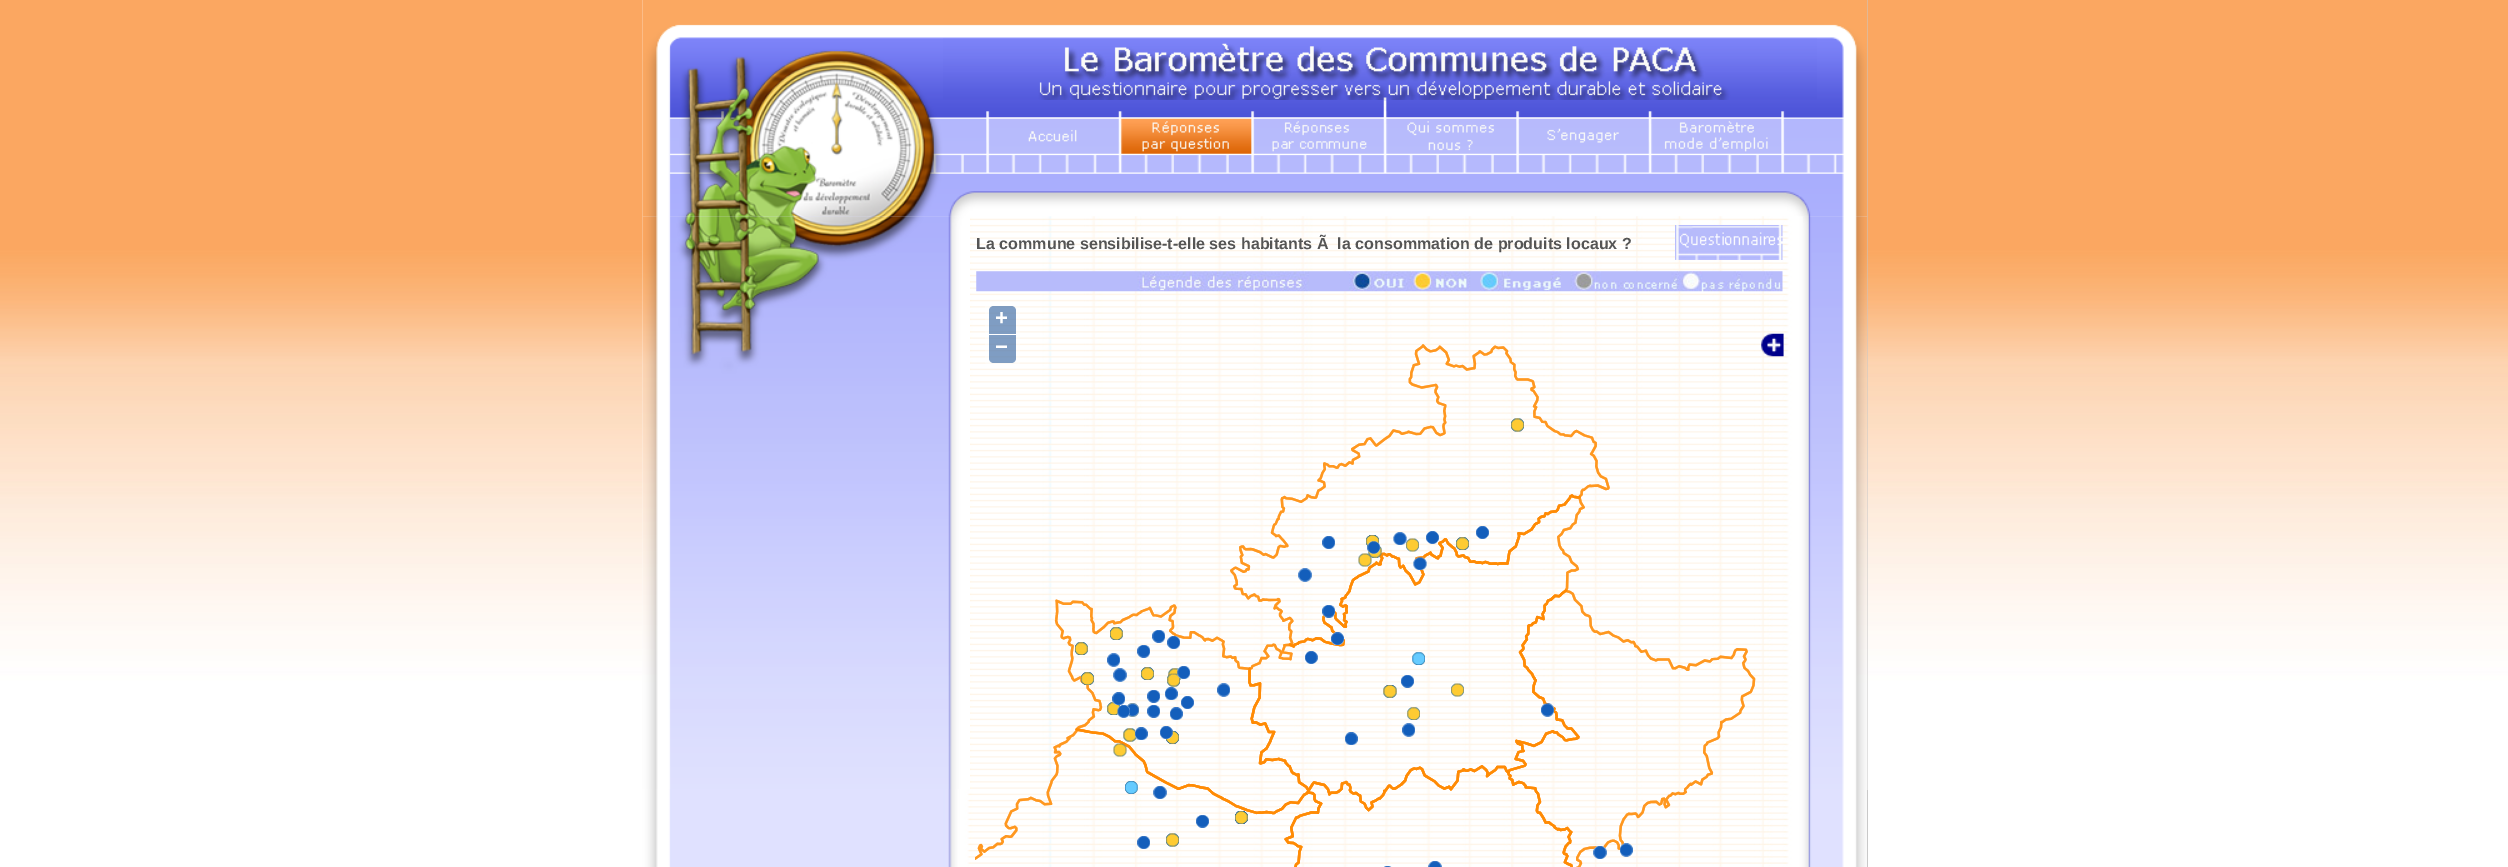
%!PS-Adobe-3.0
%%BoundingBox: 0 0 2508 867
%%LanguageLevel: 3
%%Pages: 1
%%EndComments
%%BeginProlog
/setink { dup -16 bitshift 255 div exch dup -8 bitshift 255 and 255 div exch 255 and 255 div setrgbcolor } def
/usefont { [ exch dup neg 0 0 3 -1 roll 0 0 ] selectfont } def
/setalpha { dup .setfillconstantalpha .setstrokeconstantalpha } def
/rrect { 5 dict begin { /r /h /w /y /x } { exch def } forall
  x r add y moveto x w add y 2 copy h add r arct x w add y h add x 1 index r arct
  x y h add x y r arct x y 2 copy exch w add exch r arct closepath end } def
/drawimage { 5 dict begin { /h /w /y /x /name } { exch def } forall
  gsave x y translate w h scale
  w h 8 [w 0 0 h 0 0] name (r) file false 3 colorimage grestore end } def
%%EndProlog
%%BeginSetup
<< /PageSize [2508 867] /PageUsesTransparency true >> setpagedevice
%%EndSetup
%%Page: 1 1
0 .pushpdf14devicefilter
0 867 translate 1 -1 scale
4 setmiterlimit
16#FFFFFF setink
0 0 2508 867 rectfill
(img1.raw) 0 0 2508 867 drawimage
16#999999 setink
1867 0 1 867 rectfill
(img2.raw) 642 0 1226 867 drawimage
(img3.raw) 642 0 1226 217 drawimage
(img4.raw) 943 38 874 62 drawimage
(img5.raw) 988 117 132 38 drawimage
(img6.raw) 1120 117 132 38 drawimage
(img7.raw) 1253 117 132 38 drawimage
(img8.raw) 1385 117 132 38 drawimage
(img9.raw) 1518 117 132 38 drawimage
(img10.raw) 1650 117 132 38 drawimage
(img11.raw) 642 216 328 573 drawimage
/LiberationSans-Bold 16.1 usefont
16#555555 setink
976 249 moveto (La commune sensibilise-t-elle ses habitants Ã  la consommation de produits locaux ?) show
(img12.raw) 1675 225 108 35 drawimage
(img13.raw) 976 271 807 21 drawimage
(img15.raw) 975 344 781 523 drawimage
(img16.raw) 975 344 781 523 drawimage
0.4 setalpha
16#FFFFFF setink
985 303 35 63 5 rrect fill
0.5 setalpha
16#003C88 setink
994 306 moveto 1011 306 lineto 1014 306 1016 308 1016 311 curveto 1016 334 lineto 989 334 lineto 989 311 lineto 989 308 991 306 994 306 curveto closepath fill
/LiberationSans-Bold 22 usefont
1 setalpha
16#FFFFFF setink
995 325 moveto (+) show
0.5 setalpha
16#003C88 setink
989 335 moveto 1016 335 lineto 1016 358 lineto 1016 361 1014 363 1011 363 curveto 994 363 lineto 991 363 989 361 989 358 curveto closepath fill
1 setalpha
16#FFFFFF setink
995 354 moveto (−) show
(img14.raw) 1761 333 23 24 drawimage
(img17.raw) 1803 216 65 574 drawimage
.poppdf14devicefilter showpage
%%EOF
